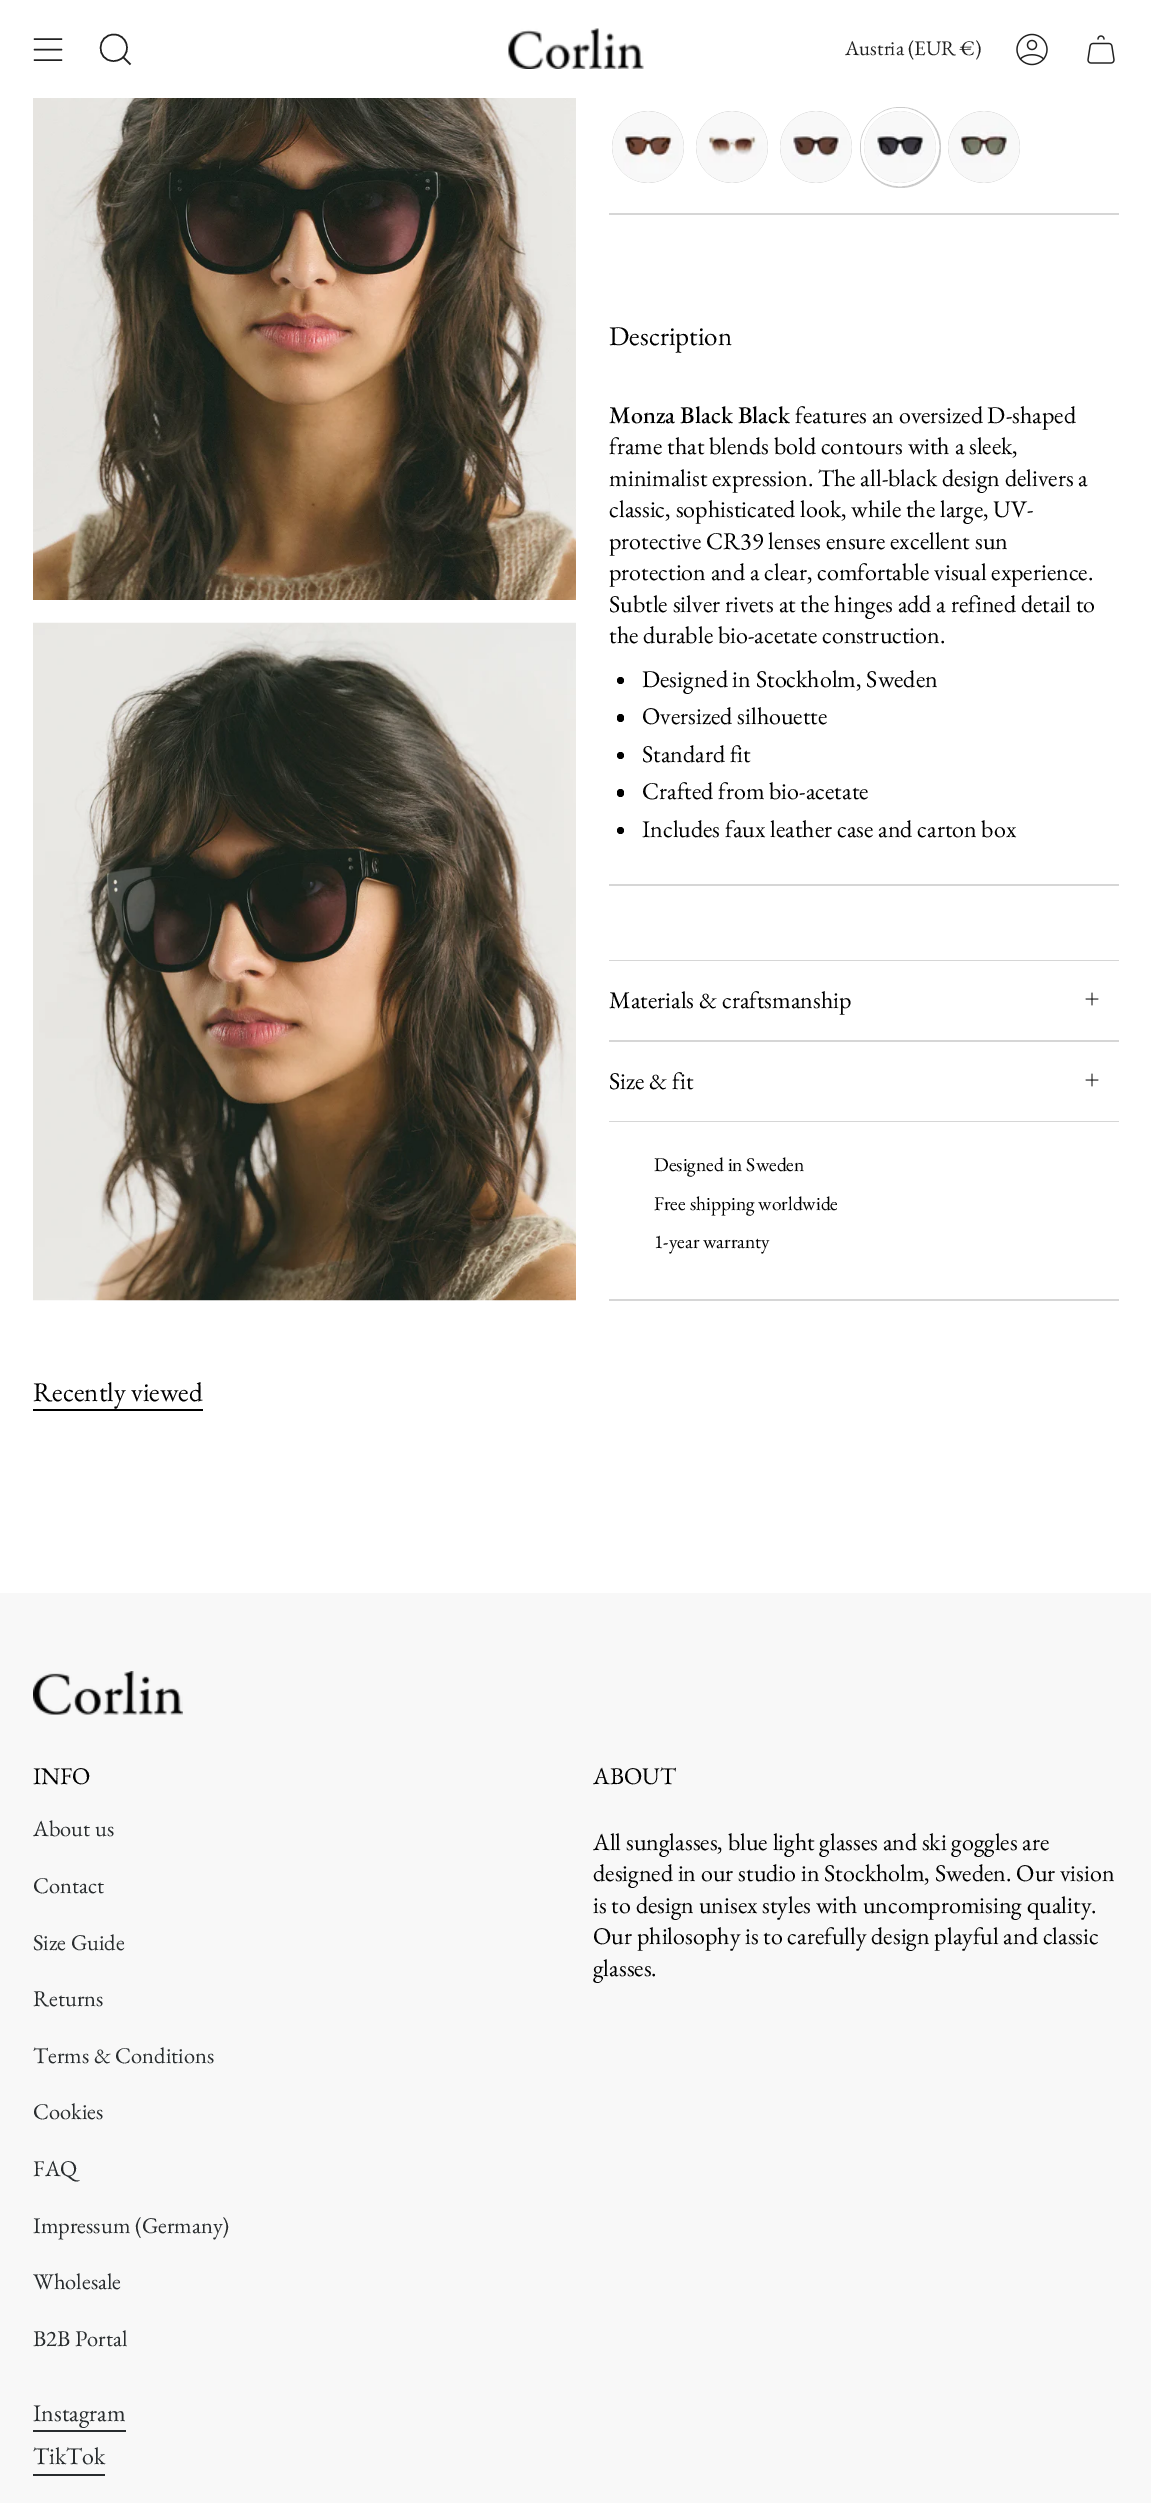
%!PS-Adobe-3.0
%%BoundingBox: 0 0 1151 2503
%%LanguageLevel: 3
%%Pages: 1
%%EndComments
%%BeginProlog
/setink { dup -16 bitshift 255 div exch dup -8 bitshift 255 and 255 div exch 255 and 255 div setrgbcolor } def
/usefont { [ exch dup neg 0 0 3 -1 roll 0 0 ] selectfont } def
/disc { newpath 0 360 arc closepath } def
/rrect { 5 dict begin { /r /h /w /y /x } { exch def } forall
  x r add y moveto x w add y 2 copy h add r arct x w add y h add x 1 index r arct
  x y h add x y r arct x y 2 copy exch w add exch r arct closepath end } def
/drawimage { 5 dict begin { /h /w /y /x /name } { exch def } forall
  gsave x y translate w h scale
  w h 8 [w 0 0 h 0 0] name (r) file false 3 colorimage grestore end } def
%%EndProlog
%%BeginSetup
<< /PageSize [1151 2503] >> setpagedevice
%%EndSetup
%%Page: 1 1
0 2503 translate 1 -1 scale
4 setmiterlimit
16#FFFFFF setink
0 0 1151 2503 rectfill
16#212121 setink
1.5 setlinewidth
1 setlinecap
1 setlinejoin
34.5 39 moveto 61.5 39 lineto 34.5 49.5 moveto 61.5 49.5 lineto 34.5 60 moveto 61.5 60 lineto stroke
0 setlinecap
0 setlinejoin
114 34.5 moveto 126.5 34.5 132 51 121.5 58.5 curveto 119 60.5 116 61 113 61 curveto 96 60.5 96.5 34.5 114 34.5 curveto closepath 123 57 moveto 130.5 64.5 lineto stroke
(img1.raw) 508 28 136 41 drawimage
/EBGaramond-Regular 20.75 usefont
845 55 moveto (Austria \(EUR €\)) show
(img2.raw) 1016 33 32 33 drawimage
(img3.raw) 1087 35 28 29 drawimage
(img4.raw) 33 98 543 502 drawimage
(img5.raw) 33 622 543 679 drawimage
16#D6D6D6 setink
609 213 510 2 rectfill
16#CCCCCC setink
648 147 36 disc fill
(img6.raw) 612 111 72 72 drawimage
732 147 36 disc fill
(img7.raw) 696 111 72 72 drawimage
816 147 36 disc fill
(img8.raw) 780 111 72 72 drawimage
900.5 147.5 40.5 disc fill
16#FFFFFF setink
3 setlinewidth
900 147 37.5 disc stroke
900 147 37.5 disc stroke
(img9.raw) 864 111 72 72 drawimage
16#CCCCCC setink
984 147 36 disc fill
(img10.raw) 948 111 72 72 drawimage
/EBGaramond-Regular 27 usefont
16#000000 setink
609 345 moveto (Description) show
/EBGaramond-Medium 24 usefont
609 423 moveto (Monza Black Black) show
/EBGaramond-Regular 24 usefont
[
    [(features an oversized D-shaped) 795 423]
    [(frame that blends bold contours with a sleek,) 609 454]
    [(minimalist expression. The all-black design delivers a) 609 486]
    [(classic, sophisticated look, while the large, UV-) 609 517]
    [(protective CR39 lenses ensure excellent sun) 609 549]
    [(protection and a clear, comfortable visual experience.) 609 580]
    [(Subtle silver rivets at the hinges add a refined detail to) 609 612]
    [(the durable bio-acetate construction.) 609 643]
] { aload pop moveto show } forall
620.5 680.5 3.5 disc fill
642 687 moveto (Designed in Stockholm, Sweden) show
617 714 7 8 3.5 rrect fill
642 724 moveto (Oversized silhouette) show
620.5 755.5 3.5 disc fill
642 762 moveto (Standard fit) show
617 789 7 8 3.5 rrect fill
642 799 moveto (Crafted from bio-acetate) show
620.5 830.5 3.5 disc fill
642 837 moveto (Includes faux leather case and carton box) show
[
    [609 884 510 2 16#D6D6D6]
    [609 960 510 1 16#D6D6D6]
    [609 1040 510 2 16#D6D6D6]
] { aload pop setink rectfill } forall
16#000000 setink
609 1008 moveto (Materials & craftsmanship) show
(img11.raw) 1085 992 14 14 drawimage
16#D6D6D6 setink
609 1121 510 1 rectfill
16#000000 setink
609 1089 moveto (Size & fit) show
(img11.raw) 1085 1073 14 14 drawimage
/EBGaramond-Regular 19.5 usefont
[
    [(Designed in Sweden) 654 1171]
    [(Free shipping worldwide) 654 1210]
    [(1-year warranty) 654 1248]
] { aload pop moveto show } forall
16#D6D6D6 setink
609 1299 510 2 rectfill
/EBGaramond-Regular 27 usefont
16#000000 setink
33 1401 moveto (Recently viewed) show
33 1409 170 2 rectfill
16#F8F8F8 setink
0 1593 1151 910 rectfill
(img12.raw) 33 1671 150 44 drawimage
/EBGaramond-Regular 24 usefont
16#000000 setink
33 1784 moveto (INFO) show
/EBGaramond-Regular 22.5 usefont
16#282C2E setink
[
    [(About us) 33 1836]
    [(Contact) 33 1893]
    [(Size Guide) 33 1950]
    [(Returns) 33 2006]
    [(Terms & Conditions) 33 2063]
    [(Cookies) 33 2119]
    [(FAQ) 33 2176]
    [(Impressum \(Germany\)) 33 2233]
    [(Wholesale) 33 2289]
    [(B2B Portal) 33 2346]
] { aload pop moveto show } forall
/EBGaramond-Regular 24 usefont
16#000000 setink
[
    [(ABOUT) 593 1784]
    [(All sunglasses, blue light glasses and ski goggles are) 593 1850]
    [(designed in our studio in Stockholm, Sweden. Our vision) 593 1881]
    [(is to design unisex styles with uncompromising quality.) 593 1913]
    [(Our philosophy is to carefully design playful and classic) 593 1944]
    [(glasses.) 593 1976]
] { aload pop moveto show } forall
16#282C2E setink
33 2421 moveto (Instagram) show
33 2430 93 2 rectfill
33 2464 moveto (TikTok) show
33 2474 72 2 rectfill
showpage
%%EOF
